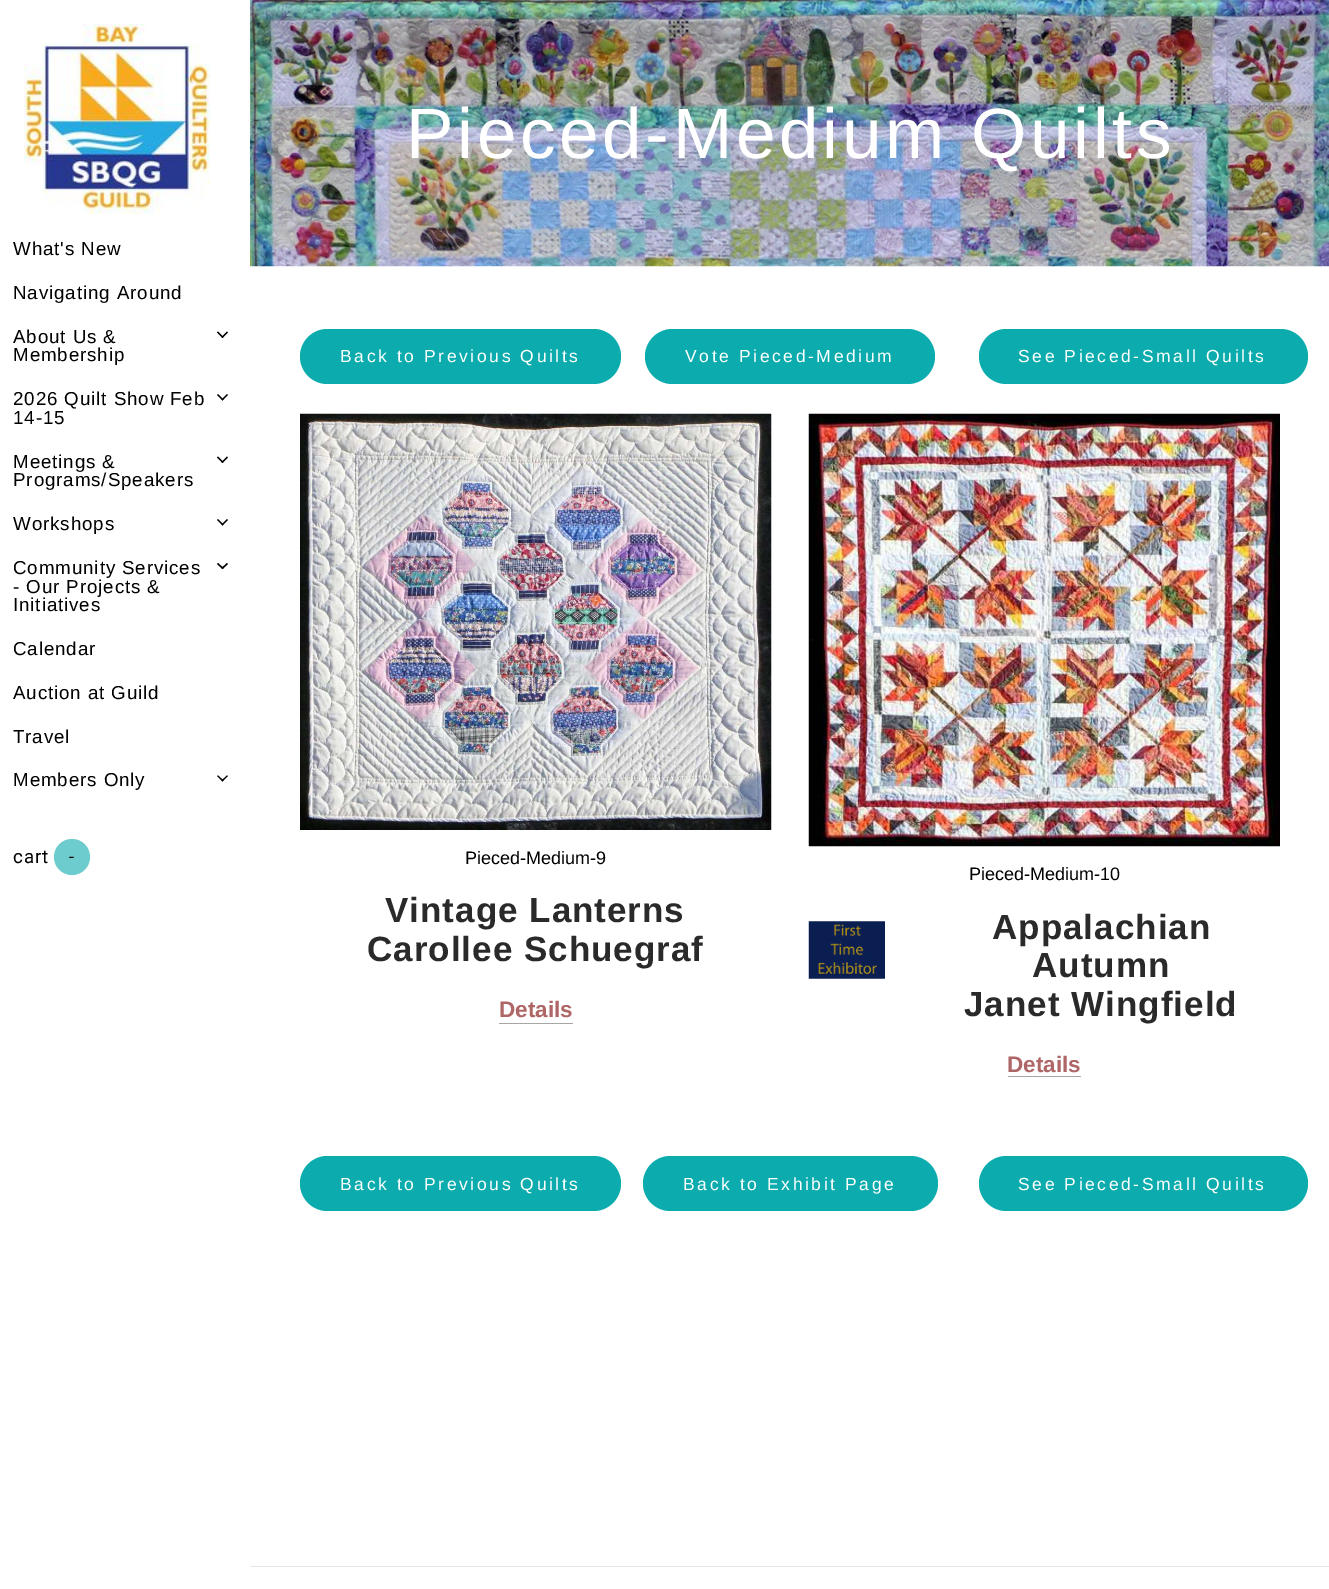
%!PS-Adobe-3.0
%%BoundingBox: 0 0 1329 1589
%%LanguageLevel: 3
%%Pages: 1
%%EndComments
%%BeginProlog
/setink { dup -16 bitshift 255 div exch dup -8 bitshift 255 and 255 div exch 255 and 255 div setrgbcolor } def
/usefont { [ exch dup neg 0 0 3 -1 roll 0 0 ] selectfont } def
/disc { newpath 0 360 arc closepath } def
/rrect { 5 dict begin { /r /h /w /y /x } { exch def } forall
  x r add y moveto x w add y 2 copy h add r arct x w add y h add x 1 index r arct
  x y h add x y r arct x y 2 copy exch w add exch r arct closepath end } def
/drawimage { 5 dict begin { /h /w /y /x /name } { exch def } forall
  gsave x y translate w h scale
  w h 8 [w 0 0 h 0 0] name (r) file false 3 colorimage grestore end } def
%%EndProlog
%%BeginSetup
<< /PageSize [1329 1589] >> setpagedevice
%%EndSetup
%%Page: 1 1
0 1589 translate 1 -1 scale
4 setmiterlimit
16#FFFFFF setink
0 0 1329 1589 rectfill
(img1.raw) 23 23 187 191 drawimage
/LiberationSans-Regular 18.75 usefont
16#000000 setink
13 255 moveto 0.9 0 (What's New) ashow
13 299 moveto 0.9 0 (Navigating Around) ashow
13 343 moveto 0.9 0 (About Us &) ashow
13 361 moveto 0.9 0 (Membership) ashow
227 331.5 moveto 228 332.5 lineto 222.5 338 lineto 221.5 337 lineto closepath fill
218 331.5 moveto 223.5 337 lineto 222.5 338 lineto 217 332.5 lineto closepath fill
13 405 moveto 0.9 0 (2026 Quilt Show Feb) ashow
13 424 moveto 0.9 0 (14-15) ashow
227 394 moveto 228 395 lineto 222.5 400.5 lineto 221.5 399.5 lineto closepath fill
218 394 moveto 223.5 399.5 lineto 222.5 400.5 lineto 217 395 lineto closepath fill
13 468 moveto 0.9 0 (Meetings &) ashow
13 486 moveto 0.9 0 (Programs/Speakers) ashow
227 456.5 moveto 228 457.5 lineto 222.5 463 lineto 221.5 462 lineto closepath fill
218 456.5 moveto 223.5 462 lineto 222.5 463 lineto 217 457.5 lineto closepath fill
13 530 moveto 0.9 0 (Workshops) ashow
227 519 moveto 228 520 lineto 222.5 525.5 lineto 221.5 524.5 lineto closepath fill
218 519 moveto 223.5 524.5 lineto 222.5 525.5 lineto 217 520 lineto closepath fill
13 574 moveto 0.9 0 (Community Services) ashow
13 593 moveto 0.9 0 (- Our Projects &) ashow
13 611 moveto 0.9 0 (Initiatives) ashow
227 563 moveto 228 564 lineto 222.5 569 lineto 221.5 568 lineto closepath fill
218 563 moveto 223.5 568 lineto 222.5 569 lineto 217 564 lineto closepath fill
13 655 moveto 0.9 0 (Calendar) ashow
13 699 moveto 0.9 0 (Auction at Guild) ashow
13 743 moveto 0.9 0 (Travel) ashow
13 786 moveto 0.9 0 (Members Only) ashow
227 775.5 moveto 228 776 lineto 222.5 781.5 lineto 221.5 780.5 lineto closepath fill
218 775.5 moveto 223.5 780.5 lineto 222.5 781.5 lineto 217 776 lineto closepath fill
/Roboto-Regular 18.75 usefont
13 863 moveto 0.9 0 (cart) ashow
16#6DCDCE setink
72 857 18 disc fill
16#000000 setink
69 863 moveto 0.9 0 (-) ashow
(img2.raw) 250 0 1079 267 drawimage
/LiberationSans-Regular 71.25 usefont
16#FFFFFF setink
406 158 moveto 3.6 0 (Pieced-Medium Quilts) ashow
16#0CACAE setink
300 329 321 55 27.5 rrect fill
/LiberationSans-Regular 17.5 usefont
16#FFFFFF setink
340 362 moveto 2.6 0 (Back to Previous Quilts) ashow
16#0CACAE setink
645 329 290 55 27.5 rrect fill
16#FFFFFF setink
685 362 moveto 2.6 0 (Vote Pieced-Medium) ashow
16#0CACAE setink
979 329 329 55 27.5 rrect fill
16#FFFFFF setink
1018 362 moveto 2.6 0 (See Pieced-Small Quilts) ashow
(img3.raw) 300 413 472 417 drawimage
/LiberationSans-Regular 18 usefont
16#000000 setink
465 864 moveto (Pieced-Medium-9) show
/LiberationSans-Bold 35 usefont
16#2A2A2A setink
385 922 moveto 1 0 (Vintage Lanterns) ashow
367 961 moveto 1 0 (Carollee Schuegraf) ashow
/LiberationSans-Bold 22.5 usefont
16#AF6666 setink
499 1017 moveto (Details) show
16#A6A6A6 setink
499 1023 74 1 rectfill
(img4.raw) 808 413 472 434 drawimage
/LiberationSans-Regular 18 usefont
16#000000 setink
969 880 moveto (Pieced-Medium-10) show
(img5.raw) 808 921 77 58 drawimage
/LiberationSans-Bold 35 usefont
16#2A2A2A setink
992 939 moveto 1 0 (Appalachian) ashow
1032 977 moveto 1 0 (Autumn) ashow
964 1016 moveto 1 0 (Janet Wingfield) ashow
/LiberationSans-Bold 22.5 usefont
16#AF6666 setink
1007 1072 moveto (Details) show
16#A6A6A6 setink
1008 1076 73 1 rectfill
16#0CACAE setink
300 1156 321 55 27.5 rrect fill
/LiberationSans-Regular 17.5 usefont
16#FFFFFF setink
340 1190 moveto 2.6 0 (Back to Previous Quilts) ashow
16#0CACAE setink
643 1156 295 55 27.5 rrect fill
16#FFFFFF setink
683 1190 moveto 2.6 0 (Back to Exhibit Page) ashow
16#0CACAE setink
979 1156 329 55 27.5 rrect fill
16#FFFFFF setink
1018 1190 moveto 2.6 0 (See Pieced-Small Quilts) ashow
16#E6E6E6 setink
250 1566 1079 1 rectfill
showpage
%%EOF
